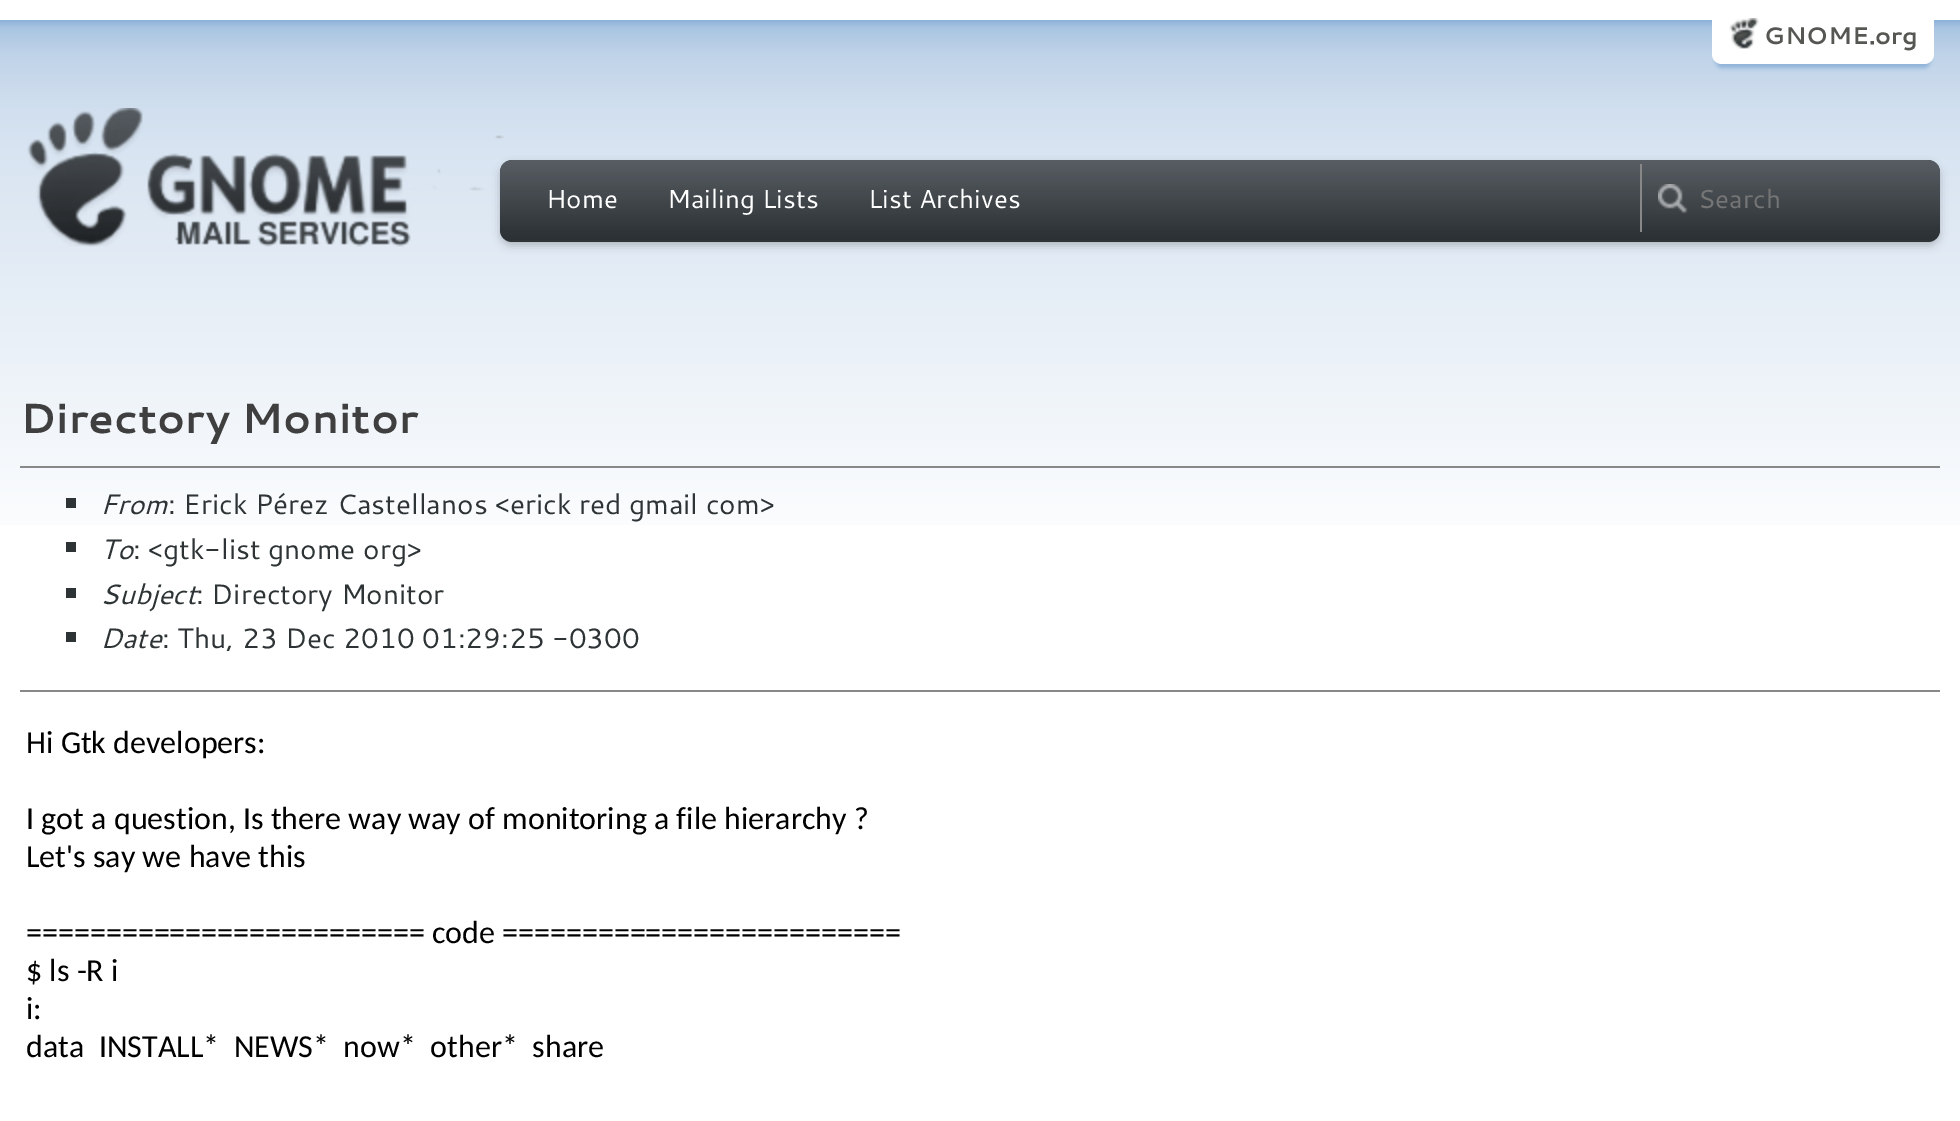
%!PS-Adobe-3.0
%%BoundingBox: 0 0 1960 1121
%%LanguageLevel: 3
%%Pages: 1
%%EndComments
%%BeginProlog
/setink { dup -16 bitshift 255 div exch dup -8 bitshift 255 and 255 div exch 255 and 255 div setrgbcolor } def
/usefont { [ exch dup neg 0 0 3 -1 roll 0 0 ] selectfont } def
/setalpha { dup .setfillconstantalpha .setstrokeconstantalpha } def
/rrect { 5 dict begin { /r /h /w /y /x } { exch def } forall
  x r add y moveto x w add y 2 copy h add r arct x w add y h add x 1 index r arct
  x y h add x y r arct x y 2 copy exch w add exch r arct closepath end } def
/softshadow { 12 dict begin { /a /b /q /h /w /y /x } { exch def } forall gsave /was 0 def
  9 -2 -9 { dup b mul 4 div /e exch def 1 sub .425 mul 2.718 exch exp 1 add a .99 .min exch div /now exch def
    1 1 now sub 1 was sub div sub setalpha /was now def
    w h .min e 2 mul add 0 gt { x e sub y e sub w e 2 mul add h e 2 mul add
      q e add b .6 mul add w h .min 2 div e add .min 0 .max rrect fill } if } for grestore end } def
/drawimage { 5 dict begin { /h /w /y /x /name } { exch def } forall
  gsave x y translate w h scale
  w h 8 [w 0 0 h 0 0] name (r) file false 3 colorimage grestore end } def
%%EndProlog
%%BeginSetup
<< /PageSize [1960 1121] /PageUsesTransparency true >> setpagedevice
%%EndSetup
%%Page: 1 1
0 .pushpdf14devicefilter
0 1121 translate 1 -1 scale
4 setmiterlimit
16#FFFFFF setink
0 0 1960 1121 rectfill
(img1.raw) 0 20 1960 505 drawimage
16#8FB3D9 setink
1716 20 214 48 6 2 1 softshadow
16#FFFFFF setink
1712 8 222 56 10 rrect fill
(img2.raw) 1729 18 30 31 drawimage
/Cantarell-Bold 24 usefont
16#555753 setink
1764 44 moveto (GNOME.org) show
(img3.raw) 27 108 478 139 drawimage
16#000000 setink
500 164 1440 82 12 4 0.2 softshadow
16#2E3436 setink
500 160 1440 82 12 rrect fill
(img4.raw) 500 160 1440 80 drawimage
/Cantarell-Regular 26 usefont
16#FFFFFF setink
[
    [(Home) 546 208]
    [(Mailing Lists) 667 208]
    [(List Archives) 868 208]
] { aload pop moveto show } forall
(img5.raw) 1658 184 30 30 drawimage
16#888888 setink
1640 164 2 68 rectfill
16#757575 setink
1698 208 moveto (Search) show
/Cantarell-Bold 42 usefont
16#3F3F3F setink
20 433 moveto (Directory Monitor) show
16#888888 setink
20 466 1920 2 rectfill
16#2E3436 setink
66 498 10 10 rectfill
/Cantarell-Italic 28 usefont
100 514 moveto (From) show
/Cantarell-Regular 28 usefont
168 514 moveto (: Erick Pérez Castellanos <erick red gmail com>) show
66 542 10 10 rectfill
/Cantarell-Italic 28 usefont
100 559 moveto (To) show
/Cantarell-Regular 28 usefont
133 559 moveto (: <gtk-list gnome org>) show
66 588 10 10 rectfill
/Cantarell-Italic 28 usefont
100 604 moveto (Subject) show
/Cantarell-Regular 28 usefont
196 604 moveto (: Directory Monitor) show
66 632 10 10 rectfill
/Cantarell-Italic 28 usefont
100 648 moveto (Date) show
/Cantarell-Regular 28 usefont
162 648 moveto (: Thu, 23 Dec 2010 01:29:25 -0300) show
16#888888 setink
20 690 1920 2 rectfill
/Carlito-Regular 32 usefont
16#000000 setink
[
    [(Hi Gtk developers:) 26 753]
    [(I got a question, Is there way way of monitoring a file hierarchy ?) 26 829]
    [(Let's say we have this) 26 867]
    [(========================= code =========================) 26 943]
    [($ ls -R i) 26 981]
    [(i:) 26 1019]
    [(data  INSTALL*  NEWS*  now*  other*  share) 26 1057]
] { aload pop moveto show } forall
.poppdf14devicefilter showpage
%%EOF
